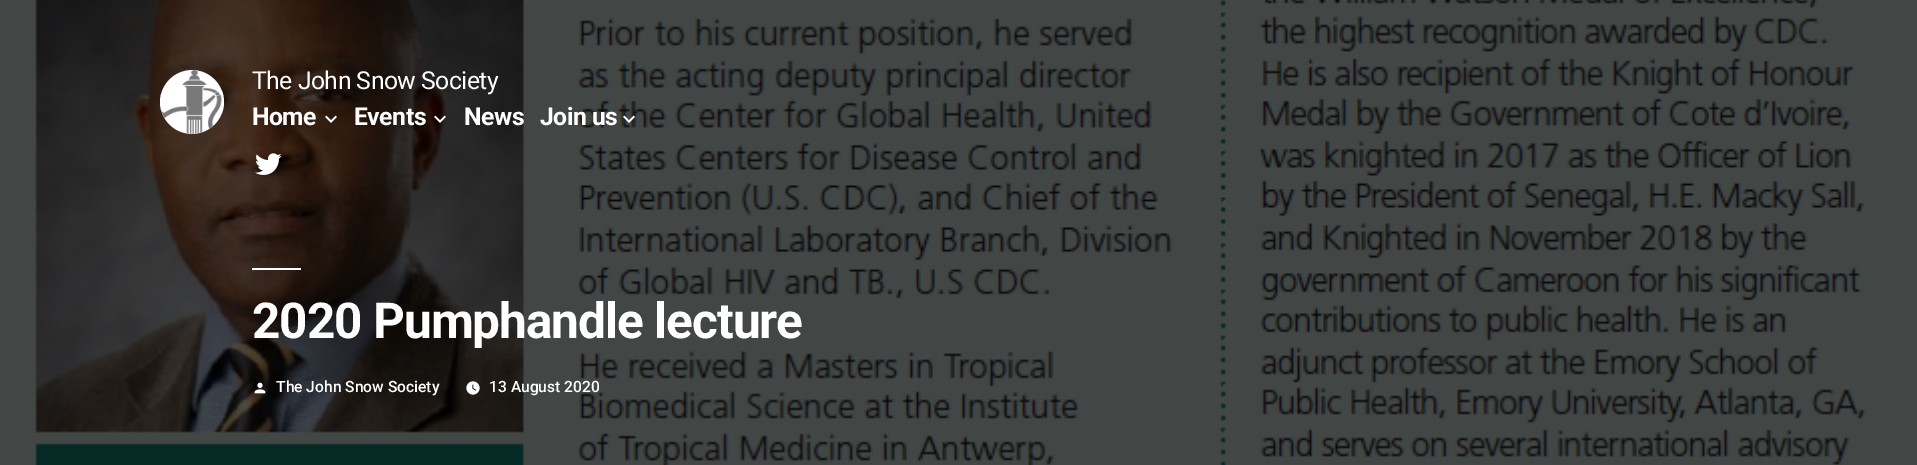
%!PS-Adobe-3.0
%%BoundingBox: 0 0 1917 465
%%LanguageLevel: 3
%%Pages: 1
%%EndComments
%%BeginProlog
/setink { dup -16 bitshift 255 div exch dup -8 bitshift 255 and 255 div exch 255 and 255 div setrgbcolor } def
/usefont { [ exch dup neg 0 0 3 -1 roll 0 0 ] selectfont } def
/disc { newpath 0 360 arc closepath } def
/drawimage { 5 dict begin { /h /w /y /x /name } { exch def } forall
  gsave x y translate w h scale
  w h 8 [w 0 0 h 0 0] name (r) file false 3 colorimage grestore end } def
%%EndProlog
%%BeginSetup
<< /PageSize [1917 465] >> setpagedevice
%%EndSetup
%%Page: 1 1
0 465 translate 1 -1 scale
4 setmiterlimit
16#FFFFFF setink
0 0 1917 465 rectfill
(img6.raw) 0 0 1917 465 drawimage
192 102 32 disc fill
(img1.raw) 161 70 61 64 drawimage
/Roboto-Regular 24.75 usefont
252 89 moveto -0.5 0 (The John Snow Society) ashow
/Roboto-Bold 24.75 usefont
252 125 moveto -0.5 0 (Home) ashow
(img2.raw) 325 115 12 8 drawimage
354 125 moveto -0.5 0 (Events) ashow
(img3.raw) 434 115 12 8 drawimage
464 125 moveto -0.5 0 (News) ashow
540 125 moveto -0.5 0 (Join us) ashow
(img4.raw) 623 115 12 8 drawimage
(img5.raw) 255 153 27 22 drawimage
252 268 49 2 rectfill
/Roboto-Bold 49.5 usefont
252 338 moveto -1 0 (2020 Pumphandle lecture) ashow
(img7.raw) 254 382 12 12 drawimage
/Roboto-Medium 15.6 usefont
276 392 moveto (The John Snow Society) show
(img8.raw) 466 381 14 14 drawimage
489 392 moveto (13 August 2020) show
showpage
%%EOF
